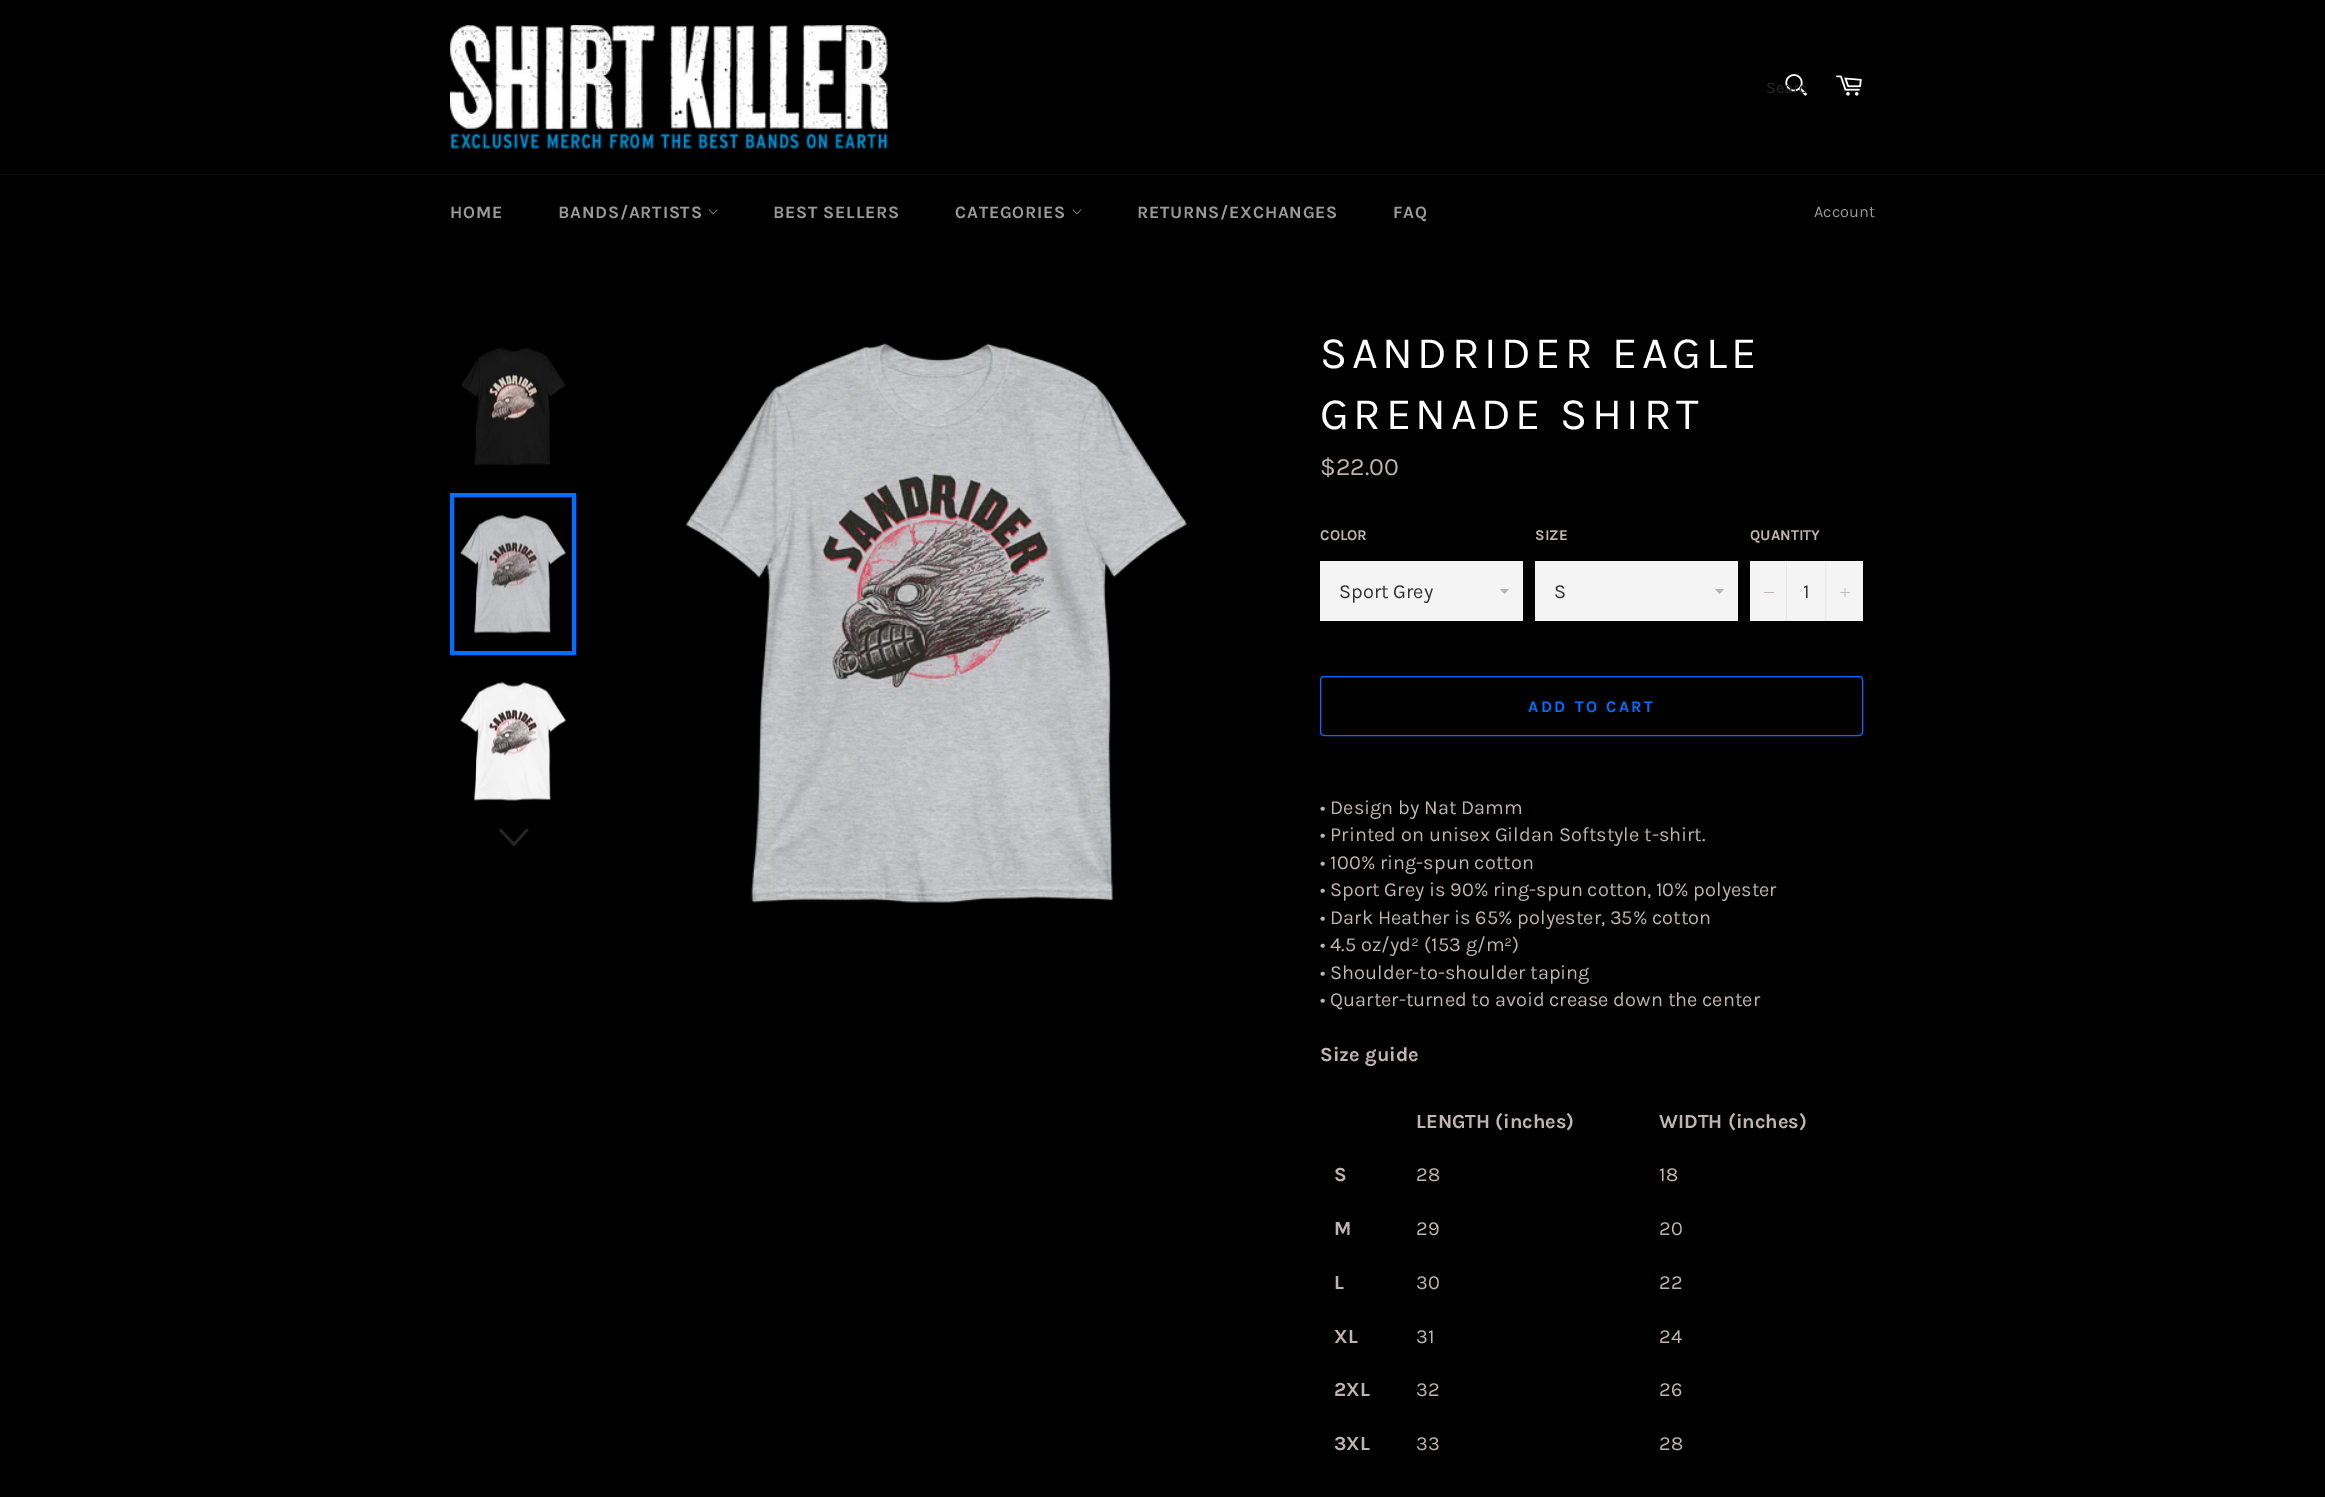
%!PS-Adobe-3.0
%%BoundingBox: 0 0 2325 1497
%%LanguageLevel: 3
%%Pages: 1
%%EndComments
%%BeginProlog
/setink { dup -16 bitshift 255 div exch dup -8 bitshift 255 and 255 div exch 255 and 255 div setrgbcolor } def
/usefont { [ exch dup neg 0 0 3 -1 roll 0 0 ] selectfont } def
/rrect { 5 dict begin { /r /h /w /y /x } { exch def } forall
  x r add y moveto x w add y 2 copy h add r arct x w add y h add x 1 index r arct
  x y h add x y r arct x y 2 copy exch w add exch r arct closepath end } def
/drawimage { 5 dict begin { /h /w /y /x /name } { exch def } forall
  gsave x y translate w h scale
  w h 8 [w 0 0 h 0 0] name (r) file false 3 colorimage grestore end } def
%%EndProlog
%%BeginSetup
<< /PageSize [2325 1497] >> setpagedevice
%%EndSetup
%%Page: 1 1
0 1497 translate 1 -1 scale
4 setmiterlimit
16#000000 setink
0 0 2325 1497 rectfill
(img1.raw) 450 25 438 124 drawimage
(img2.raw) 1785 74 22 22 drawimage
gsave
1766 78 40 18 rectclip
/Karla-Regular 16.25 usefont
16#292929 setink
1766 93 moveto (Searc) show
grestore
(img3.raw) 1836 75 26 21 drawimage
16#0D0D0D setink
0 174 2325 1 rectfill
/Karla-Bold 17.5 usefont
16#999999 setink
450 218 moveto 0.75 0 (HOME) ashow
558 218 moveto 0.75 0 (BANDS/ARTISTS) ashow
(img4.raw) 708 209 10 6 drawimage
773 218 moveto 0.75 0 (BEST SELLERS) ashow
955 218 moveto 0.75 0 (CATEGORIES) ashow
(img5.raw) 1072 209 10 6 drawimage
1137 218 moveto 0.75 0 (RETURNS/EXCHANGES) ashow
1393 218 moveto 0.75 0 (FAQ) ashow
/Karla-Regular 16.25 usefont
1814 217 moveto (Account) show
(img6.raw) 461 347 105 119 drawimage
(img7.raw) 460 514 106 120 drawimage
16#006EFF setink
4 setlinewidth
452 495 122 158 rectstroke
(img8.raw) 460 681 106 120 drawimage
16#262424 setink
526.5 828.5 moveto 528.5 830.5 lineto 514 846.5 lineto 499 830.5 lineto 501 828.5 lineto 514 842.5 lineto closepath fill
(img9.raw) 686 343 502 560 drawimage
/Karla-Regular 45 usefont
16#FFFFFF setink
1320 368 moveto 4.5 0 (SANDRIDER EAGLE) ashow
1320 429 moveto 4.5 0 (GRENADE SHIRT) ashow
/Karla-Regular 25 usefont
16#C0B3B3 setink
1320 475 moveto ($22.00) show
/Karla-Bold 15 usefont
1320 540 moveto (COLOR) show
16#F4F4F4 setink
1320 561 203 60 rectfill
16#C0B3B3 setink
1500 589 moveto 1504.5 594 lineto 1509 589 lineto closepath fill
/Karla-Regular 20 usefont
16#333333 setink
1339 598 moveto (Sport Grey) show
/Karla-Bold 15 usefont
16#C0B3B3 setink
1535 540 moveto (SIZE) show
16#F4F4F4 setink
1535 561 203 60 rectfill
16#C0B3B3 setink
1715 589 moveto 1719.5 594 lineto 1724 589 lineto closepath fill
/Karla-Regular 20 usefont
16#333333 setink
1554 598 moveto (S) show
/Karla-Bold 15 usefont
16#C0B3B3 setink
1750 540 moveto (QUANTITY) show
[
    [1750 561 113 60 16#F4F4F4]
    [1786 561 1 60 16#E7E7E7]
    [1764 592 10 1 16#C0B3B3]
] { aload pop setink rectfill } forall
/Karla-Regular 20 usefont
16#333333 setink
1803 598 moveto (1) show
16#E7E7E7 setink
1825 561 1 60 rectfill
(img10.raw) 1840 588 10 10 drawimage
16#006EFF setink
1 setlinewidth
1320.5 676.5 542 59 3.5 rrect stroke
/Karla-Bold 16.25 usefont
1528 712 moveto 2.5 0 (ADD TO CART) ashow
/Karla-Regular 20 usefont
16#C0B3B3 setink
[
    [(• Design by Nat Damm) 1320 814]
    [(• Printed on unisex Gildan Softstyle t-shirt.) 1320 841]
    [(• 100% ring-spun cotton) 1320 869]
    [(• Sport Grey is 90% ring-spun cotton, 10% polyester) 1320 896]
    [(• Dark Heather is 65% polyester, 35% cotton) 1320 924]
    [(• 4.5 oz/yd² \(153 g/m²\)) 1320 951]
    [(• Shoulder-to-shoulder taping) 1320 979]
    [(• Quarter-turned to avoid crease down the center) 1320 1006]
] { aload pop moveto show } forall
/Karla-Bold 20 usefont
[
    [(Size guide) 1320 1061]
    [(LENGTH \(inches\)) 1416 1128]
    [(WIDTH \(inches\)) 1659 1128]
    [(S) 1334 1181]
] { aload pop moveto show } forall
/Karla-Regular 20 usefont
1416 1181 moveto (28) show
1659 1181 moveto (18) show
/Karla-Bold 20 usefont
1334 1235 moveto (M) show
/Karla-Regular 20 usefont
1416 1235 moveto (29) show
1659 1235 moveto (20) show
/Karla-Bold 20 usefont
1334 1289 moveto (L) show
/Karla-Regular 20 usefont
1416 1289 moveto (30) show
1659 1289 moveto (22) show
/Karla-Bold 20 usefont
1334 1343 moveto (XL) show
/Karla-Regular 20 usefont
1416 1343 moveto (31) show
1659 1343 moveto (24) show
/Karla-Bold 20 usefont
1334 1396 moveto (2XL) show
/Karla-Regular 20 usefont
1416 1396 moveto (32) show
1659 1396 moveto (26) show
/Karla-Bold 20 usefont
1334 1450 moveto (3XL) show
/Karla-Regular 20 usefont
1416 1450 moveto (33) show
1659 1450 moveto (28) show
showpage
%%EOF
